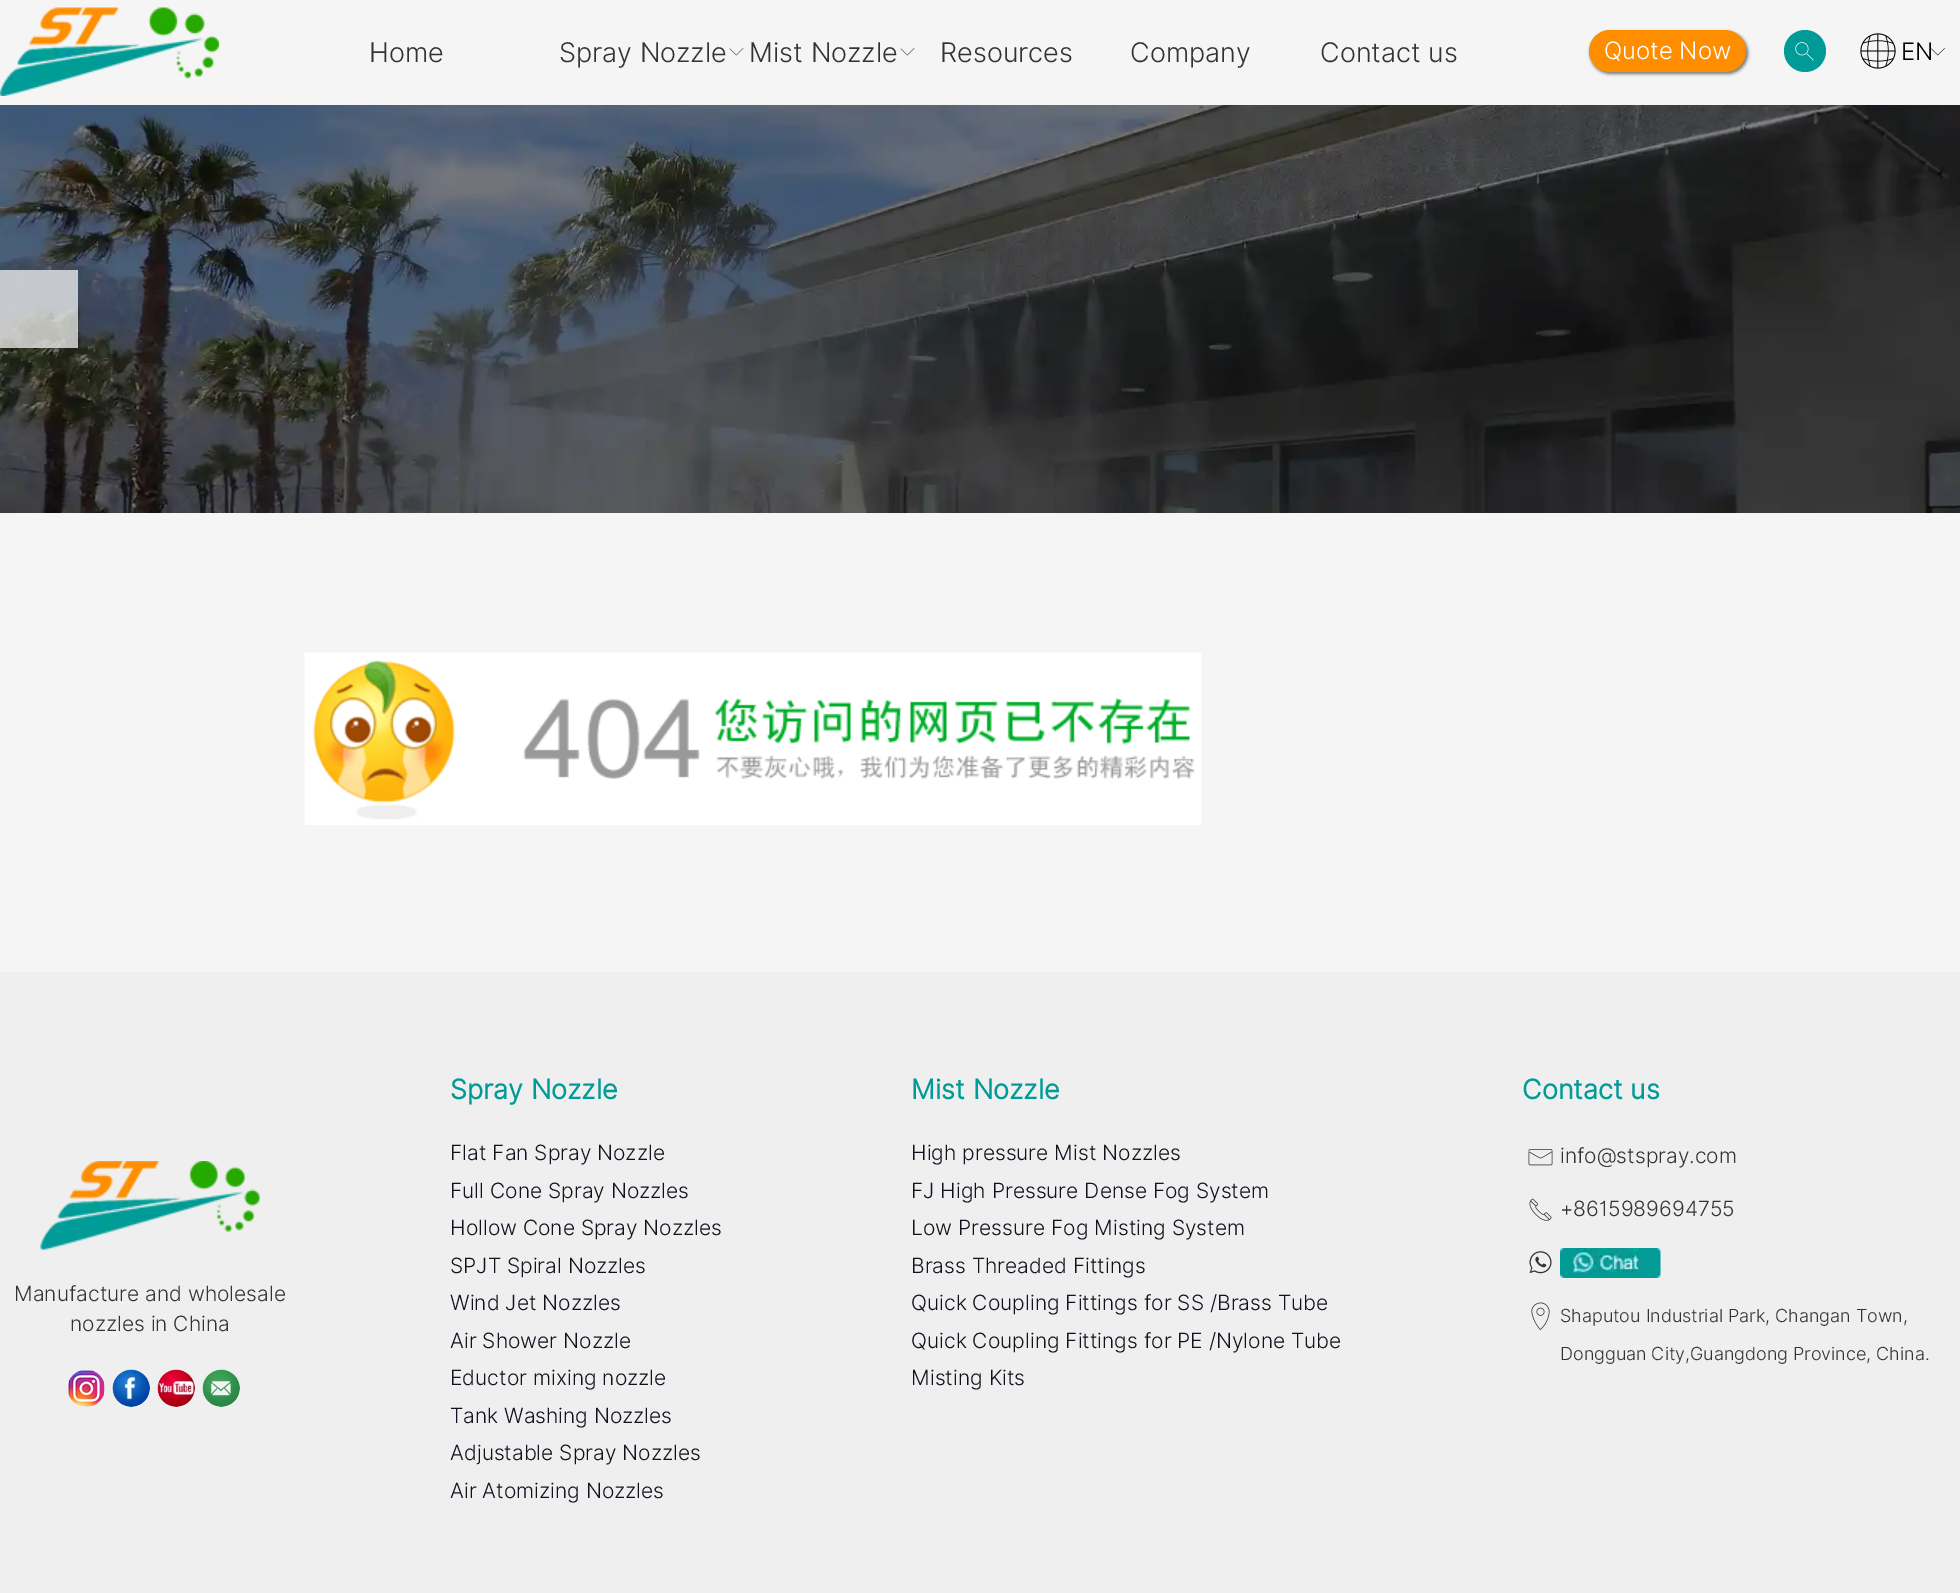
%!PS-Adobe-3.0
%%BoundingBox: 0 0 1960 1593
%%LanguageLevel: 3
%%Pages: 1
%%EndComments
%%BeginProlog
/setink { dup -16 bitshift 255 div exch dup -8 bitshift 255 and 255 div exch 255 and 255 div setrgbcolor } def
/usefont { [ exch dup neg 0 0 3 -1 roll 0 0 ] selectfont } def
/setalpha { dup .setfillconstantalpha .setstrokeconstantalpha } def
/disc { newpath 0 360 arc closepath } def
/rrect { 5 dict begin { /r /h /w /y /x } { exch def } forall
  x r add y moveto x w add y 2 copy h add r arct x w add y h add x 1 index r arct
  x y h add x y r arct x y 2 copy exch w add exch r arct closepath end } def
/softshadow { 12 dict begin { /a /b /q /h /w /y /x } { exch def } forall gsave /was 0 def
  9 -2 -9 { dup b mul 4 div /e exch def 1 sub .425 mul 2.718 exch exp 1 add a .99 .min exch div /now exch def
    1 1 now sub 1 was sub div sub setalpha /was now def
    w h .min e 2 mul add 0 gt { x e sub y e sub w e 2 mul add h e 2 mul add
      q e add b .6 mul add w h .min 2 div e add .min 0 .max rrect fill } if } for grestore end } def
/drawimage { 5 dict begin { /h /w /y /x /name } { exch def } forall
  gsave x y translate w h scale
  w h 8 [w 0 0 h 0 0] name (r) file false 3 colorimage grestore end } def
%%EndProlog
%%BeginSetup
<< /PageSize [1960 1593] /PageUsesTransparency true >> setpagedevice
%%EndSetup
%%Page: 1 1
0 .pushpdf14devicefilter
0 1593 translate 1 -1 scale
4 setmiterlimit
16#F5F5F5 setink
0 0 1960 1593 rectfill
(img1.raw) 0 7 219 89 drawimage
/Inter-Light 27 usefont
16#333333 setink
369 62 moveto (Home) show
559 62 moveto (Spray Nozzle) show
(img2.raw) 729 48 15 8 drawimage
749 62 moveto (Mist Nozzle) show
(img2.raw) 900 48 15 8 drawimage
[
    [(Resources) 940 62]
    [(Company) 1130 62]
    [(Contact us) 1320 62]
] { aload pop moveto show } forall
16#000000 setink
1590 32 158 42 21 1.5 0.5 softshadow
16#FF8D00 setink
1589 30 157 42 21 rrect fill
/Inter-Light 24 usefont
16#FFFFFF setink
1604 59 moveto (Quote Now) show
16#009B97 setink
1805 51 21 disc fill
(img3.raw) 1795 42 19 19 drawimage
(img4.raw) 1860 33 36 36 drawimage
16#000000 setink
1901 60 moveto (EN) show
(img5.raw) 1931 48 14 8 drawimage
(img6.raw) 0 105 1960 408 drawimage
0.7 setalpha
16#FFFFFF setink
0 270 78 78 rectfill
1 setalpha
(img7.raw) 304 652 898 173 drawimage
16#EFEFEF setink
0 972 1960 621 rectfill
(img8.raw) 40 1161 220 89 drawimage
/Inter-Light 21 usefont
16#333333 setink
14 1301 moveto (Manufacture and wholesale) show
70 1331 moveto (nozzles in China) show
16#FFFFFF setink
86.5 1388.5 18.5 disc fill
(img9.raw) 67 1370 38 37 drawimage
131.5 1388.5 18.5 disc fill
(img10.raw) 112 1369 38 38 drawimage
176.5 1388.5 18.5 disc fill
(img11.raw) 157 1369 38 38 drawimage
221.5 1388.5 18.5 disc fill
(img12.raw) 202 1369 38 38 drawimage
/Inter-Bold 27 usefont
16#009B97 setink
450 1099 moveto (Spray Nozzle) show
/Inter-Light 21 usefont
16#11121E setink
[
    [(Flat Fan Spray Nozzle) 450 1160]
    [(Full Cone Spray Nozzles) 450 1198]
    [(Hollow Cone Spray Nozzles) 450 1235]
    [(SPJT Spiral Nozzles) 450 1273]
    [(Wind Jet Nozzles) 450 1310]
    [(Air Shower Nozzle) 450 1348]
    [(Eductor mixing nozzle) 450 1385]
    [(Tank Washing Nozzles) 450 1423]
    [(Adjustable Spray Nozzles) 450 1460]
    [(Air Atomizing Nozzles) 450 1498]
] { aload pop moveto show } forall
/Inter-Bold 27 usefont
16#009B97 setink
911 1099 moveto (Mist Nozzle) show
/Inter-Light 21 usefont
16#11121E setink
[
    [(High pressure Mist Nozzles) 911 1160]
    [(FJ High Pressure Dense Fog System) 911 1198]
    [(Low Pressure Fog Misting System) 911 1235]
    [(Brass Threaded Fittings) 911 1273]
    [(Quick Coupling Fittings for SS /Brass Tube) 911 1310]
    [(Quick Coupling Fittings for PE /Nylone Tube) 911 1348]
    [(Misting Kits) 911 1385]
] { aload pop moveto show } forall
/Inter-Bold 27 usefont
16#009B97 setink
1522 1099 moveto (Contact us) show
(img13.raw) 1528 1149 25 17 drawimage
/Inter-Light 21 usefont
16#333333 setink
1560 1163 moveto (info@stspray.com) show
(img14.raw) 1529 1198 23 23 drawimage
1560 1216 moveto (+8615989694755) show
(img15.raw) 1529 1251 23 23 drawimage
(img16.raw) 1560 1248 101 30 drawimage
(img17.raw) 1531 1302 19 28 drawimage
/Inter-Light 18 usefont
1560 1322 moveto (Shaputou Industrial Park, Changan Town,) show
1560 1360 moveto (Dongguan City,Guangdong Province, China.) show
.poppdf14devicefilter showpage
%%EOF
